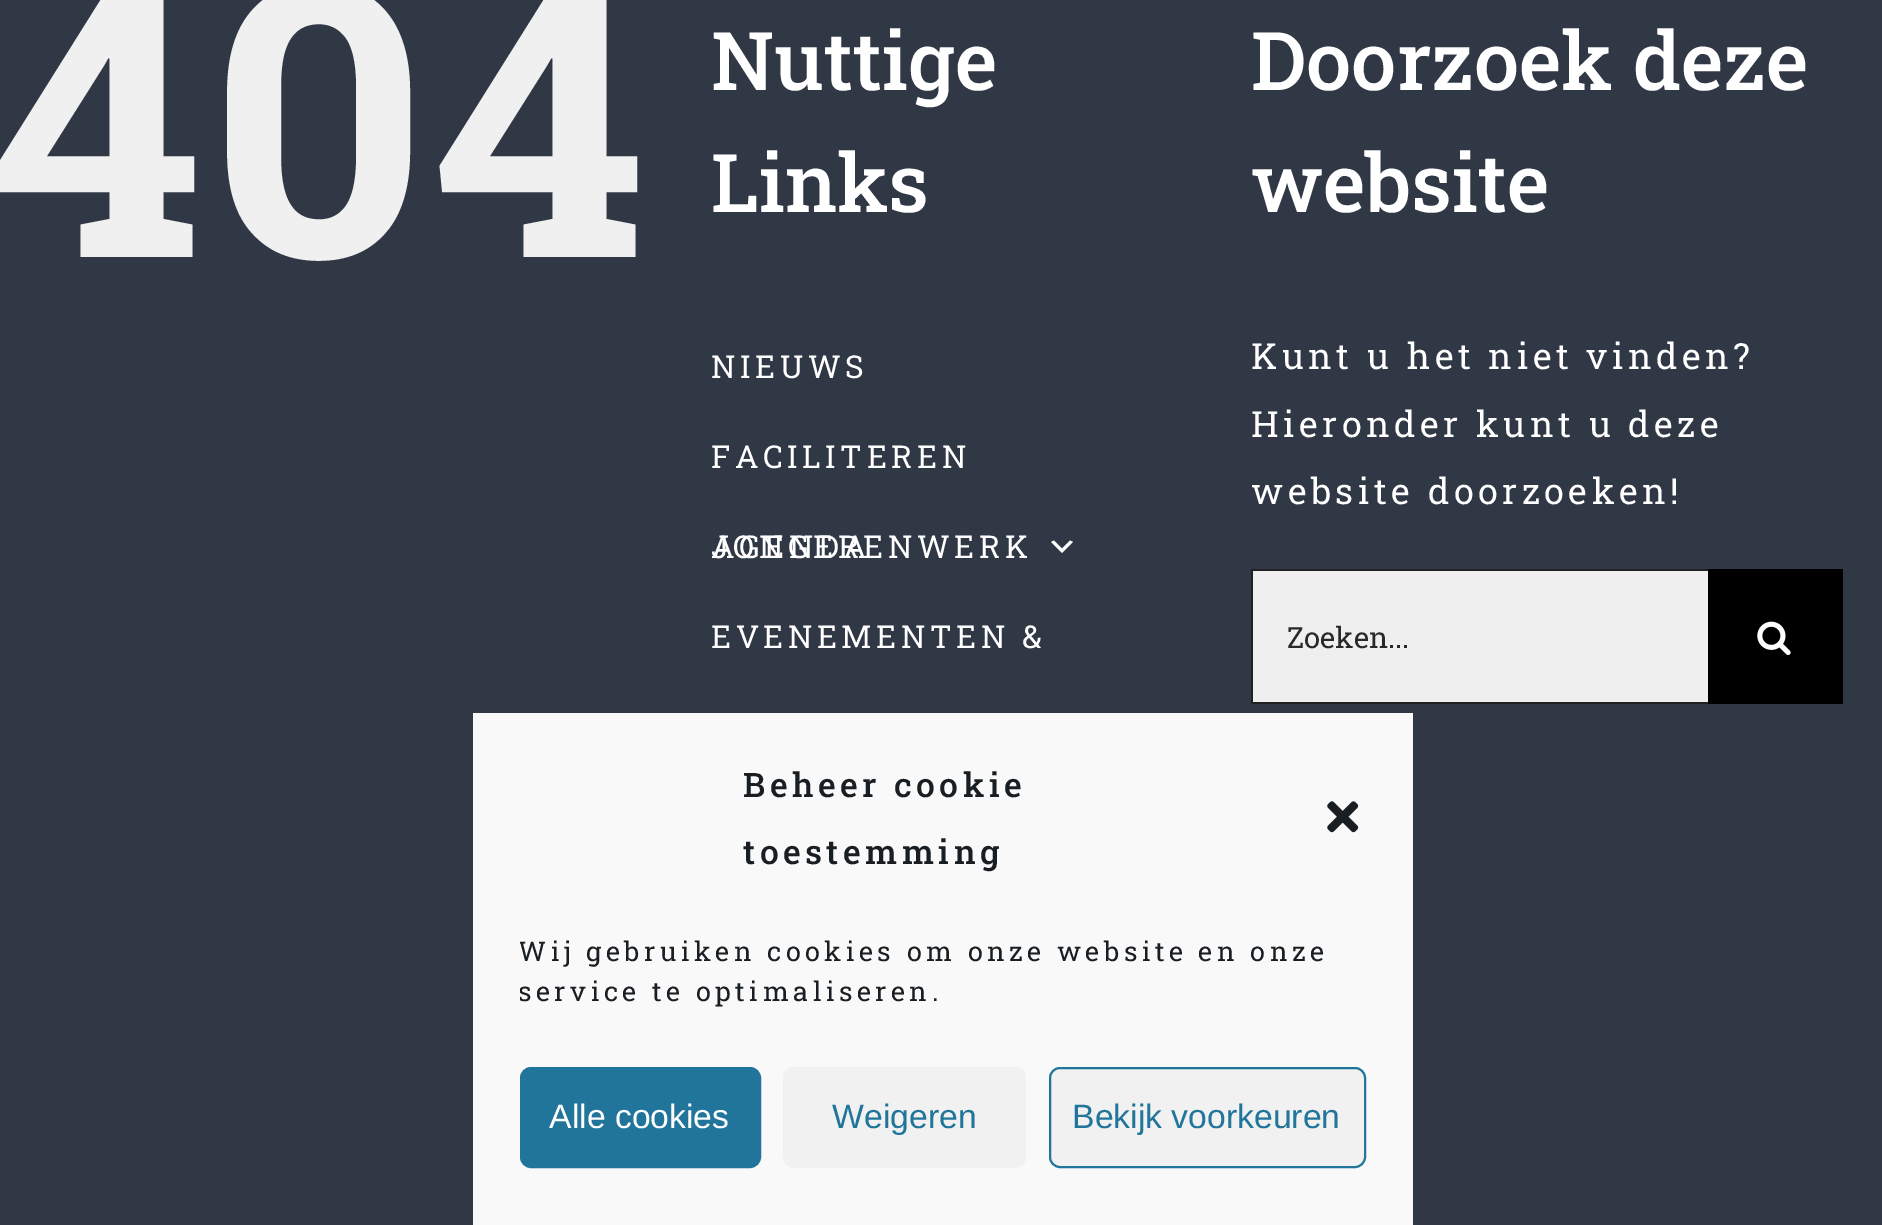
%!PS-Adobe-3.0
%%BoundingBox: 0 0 1882 1225
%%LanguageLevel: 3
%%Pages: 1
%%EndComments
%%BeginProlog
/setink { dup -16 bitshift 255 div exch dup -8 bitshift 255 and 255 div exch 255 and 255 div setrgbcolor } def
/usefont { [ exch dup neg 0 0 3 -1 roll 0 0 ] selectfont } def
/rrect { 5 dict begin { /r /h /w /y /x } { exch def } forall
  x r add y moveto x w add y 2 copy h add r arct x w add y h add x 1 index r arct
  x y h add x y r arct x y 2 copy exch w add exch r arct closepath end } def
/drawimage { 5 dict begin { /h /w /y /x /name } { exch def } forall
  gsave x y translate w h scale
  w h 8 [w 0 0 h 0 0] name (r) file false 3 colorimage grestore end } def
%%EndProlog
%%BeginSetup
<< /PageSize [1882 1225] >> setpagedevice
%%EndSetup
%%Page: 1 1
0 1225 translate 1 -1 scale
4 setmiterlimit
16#303745 setink
0 0 1882 1225 rectfill
/RobotoSlab-Bold 382 usefont
16#F0F0F0 setink
-11 257 moveto 4.5 0 (404) ashow
/RobotoSlab-Medium 81 usefont
16#FFFFFF setink
711 90 moveto (Nuttige) show
711 212 moveto (Links) show
/RobotoSlab-Regular 31.5 usefont
711 378 moveto 4.5 0 (NIEUWS) ashow
711 468 moveto 4.5 0 (FACILITEREN) ashow
711 558 moveto 4.5 0 (JONGERENWERK) ashow
1054 540.5 moveto 1062 548.5 lineto 1070 540.5 lineto 1073 542 lineto 1062 553 lineto 1051 542 lineto closepath fill
711 558 moveto 4.5 0 (AGENDA) ashow
711 648 moveto 4.5 0 (EVENEMENTEN &) ashow
/RobotoSlab-Medium 81 usefont
1251 90 moveto (Doorzoek deze) show
1251 212 moveto (website) show
/RobotoSlab-Regular 36 usefont
1251 369 moveto 4.5 0 (Kunt u het niet vinden?) ashow
1251 437 moveto 4.5 0 (Hieronder kunt u deze) ashow
1251 504 moveto 4.5 0 (website doorzoeken!) ashow
[
    [1253 571 455 131 16#EFEFEF]
    [1251 569 457 2 16#212122]
    [1251 702 457 2 16#212122]
    [1251 569 2 135 16#212122]
] { aload pop setink rectfill } forall
/RobotoSlab-Regular 29.25 usefont
16#29292A setink
1287 648 moveto (Zoeken...) show
16#000000 setink
1708 569 135 135 rectfill
(img1.raw) 1757 621 34 34 drawimage
16#F9F9F9 setink
473 713 940 512 rectfill
/RobotoSlab-Medium 33.75 usefont
16#191E23 setink
743 797 moveto 4.5 0 (Beheer cookie) ashow
743 864 moveto 4.5 0 (toestemming) ashow
(img2.raw) 1327 801 32 32 drawimage
gsave
520 929 846 93 rectclip
/RobotoSlab-Regular 27 usefont
518 961 moveto 4.5 0 (Wij gebruiken cookies om onze website en onze) ashow
518 1001 moveto 4.5 0 (service te optimaliseren.) ashow
grestore
16#21759B setink
521 1068 239 99 10 rrect gsave fill grestore
2 setlinewidth
stroke
/LiberationSans-Regular 33.75 usefont
16#FFFFFF setink
549 1128 moveto (Alle cookies) show
16#F1F1F1 setink
783 1067 243 101 11 rrect fill
16#21759B setink
832 1128 moveto (Weigeren) show
16#F1F1F1 setink
1050 1068 315 99 10 rrect gsave fill grestore
16#21759B setink
stroke
1072 1128 moveto (Bekijk voorkeuren) show
showpage
%%EOF
